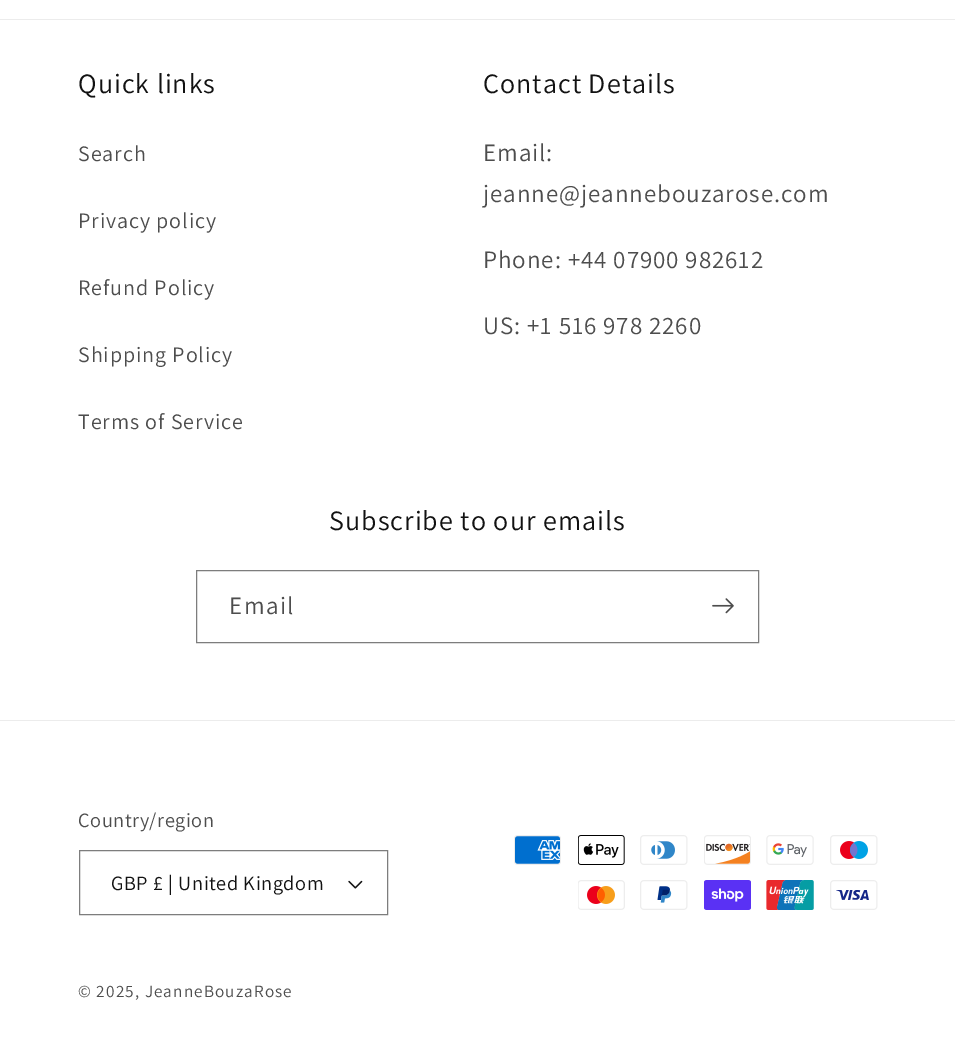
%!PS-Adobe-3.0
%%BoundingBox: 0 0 955 1050
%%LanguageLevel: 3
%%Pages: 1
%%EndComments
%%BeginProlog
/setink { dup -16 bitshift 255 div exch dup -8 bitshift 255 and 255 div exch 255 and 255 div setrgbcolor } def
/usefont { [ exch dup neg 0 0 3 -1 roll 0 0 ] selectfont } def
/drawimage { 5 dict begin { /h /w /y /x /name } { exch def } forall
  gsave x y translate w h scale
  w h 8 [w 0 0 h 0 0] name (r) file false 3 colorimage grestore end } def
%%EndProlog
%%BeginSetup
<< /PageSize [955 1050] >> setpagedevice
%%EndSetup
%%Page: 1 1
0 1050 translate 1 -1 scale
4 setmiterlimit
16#FFFFFF setink
0 0 955 1050 rectfill
16#ECECEC setink
0 19 955 1 rectfill
/Assistant-Regular 28 usefont
16#121212 setink
78 93 moveto 1.05 0 (Quick links) ashow
/Assistant-Regular 22 usefont
16#4D4D4D setink
78 161 moveto 0.95 0 (Search) ashow
78 228 moveto 0.95 0 (Privacy policy) ashow
78 295 moveto 0.95 0 (Refund Policy) ashow
78 362 moveto 0.95 0 (Shipping Policy) ashow
78 429 moveto 0.95 0 (Terms of Service) ashow
/Assistant-Regular 28 usefont
16#121212 setink
483 93 moveto 1.05 0 (Contact Details) ashow
/Assistant-Regular 25 usefont
16#4D4D4D setink
483 161 moveto 0.95 0 (Email:) ashow
483 202 moveto 0.95 0 (jeanne@jeannebouzarose.com) ashow
483 268 moveto 0.95 0 (Phone: +44 07900 982612) ashow
483 334 moveto 0.95 0 (US: +1 516 978 2260) ashow
/Assistant-Regular 28 usefont
16#121212 setink
329 530 moveto 1.05 0 (Subscribe to our emails) ashow
16#7D7D7D setink
196.5 570.5 562 72 rectstroke
/Assistant-Regular 25 usefont
16#4D4D4D setink
229 614 moveto 1.5 0 (Email) ashow
(img1.raw) 712 598 22 16 drawimage
16#ECECEC setink
0 720 955 1 rectfill
/Assistant-Regular 20.25 usefont
16#4D4D4D setink
78 827 moveto 0.6 0 (Country/region) ashow
(img2.raw) 348 880 15 9 drawimage
16#7D7D7D setink
79.5 850.5 308 64 rectstroke
16#121212 setink
111 890 moveto 0.6 0 (GBP £ | United Kingdom) ashow
(img3.raw) 514 835 47 30 drawimage
(img4.raw) 578 835 47 30 drawimage
(img5.raw) 640 835 48 30 drawimage
(img6.raw) 704 835 47 30 drawimage
(img7.raw) 766 835 48 30 drawimage
(img8.raw) 830 835 48 30 drawimage
(img9.raw) 578 880 47 30 drawimage
(img10.raw) 640 880 48 30 drawimage
(img11.raw) 704 880 47 30 drawimage
(img12.raw) 766 880 48 30 drawimage
(img13.raw) 830 880 48 30 drawimage
/Assistant-Regular 17.25 usefont
16#4D4D4D setink
78 997 moveto 1.1 0 (© 2025, JeanneBouzaRose) ashow
showpage
%%EOF
